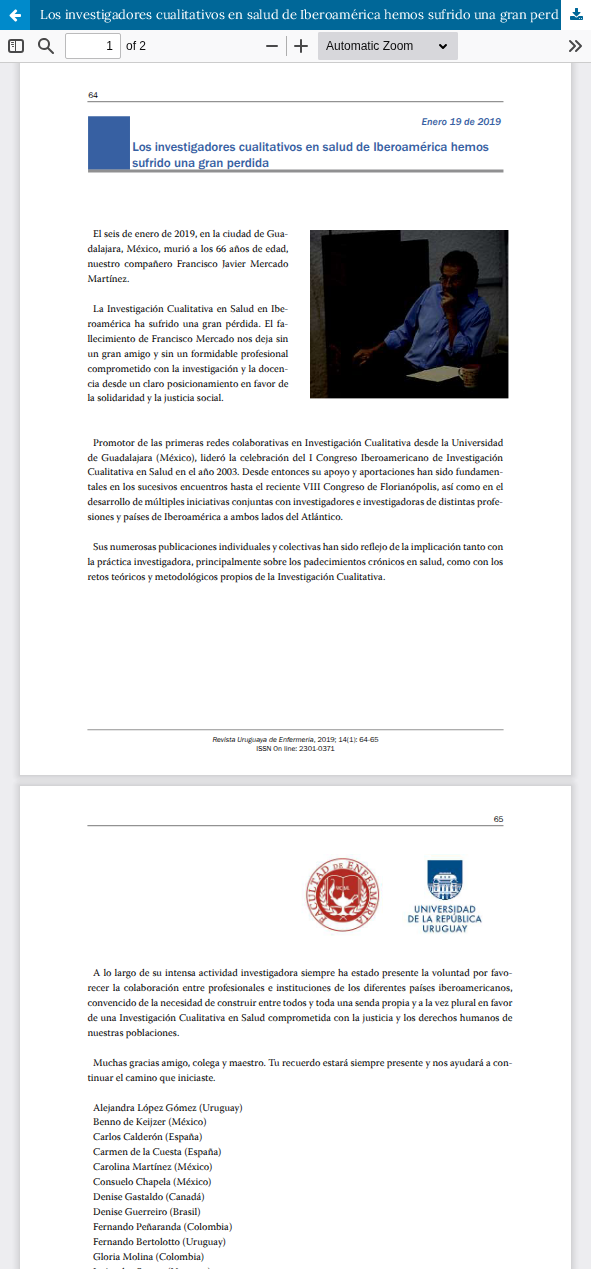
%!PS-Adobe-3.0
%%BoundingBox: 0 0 591 1269
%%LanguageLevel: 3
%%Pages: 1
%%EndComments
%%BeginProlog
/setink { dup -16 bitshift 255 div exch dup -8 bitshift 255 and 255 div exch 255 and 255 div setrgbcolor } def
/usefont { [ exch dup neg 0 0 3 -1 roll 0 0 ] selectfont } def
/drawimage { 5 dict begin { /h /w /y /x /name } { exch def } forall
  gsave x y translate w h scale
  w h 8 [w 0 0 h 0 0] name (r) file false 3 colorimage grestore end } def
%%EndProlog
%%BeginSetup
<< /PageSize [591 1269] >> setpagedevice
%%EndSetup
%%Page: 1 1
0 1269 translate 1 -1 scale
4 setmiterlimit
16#FFFFFF setink
0 0 591 1269 rectfill
16#006798 setink
30 0 531 30 rectfill
16#008ACB setink
0 0 30 30 rectfill
(img1.raw) 9 9 12 13 drawimage
/Lora-Regular 13 usefont
16#FFFFFF setink
40 19 moveto (Los investigadores cualitativos en salud de Iberoamérica hemos sufrido una gran perd) show
(img2.raw) 570 8 13 12 drawimage
(img3.raw) 0 30 591 1239 drawimage
showpage
%%EOF
